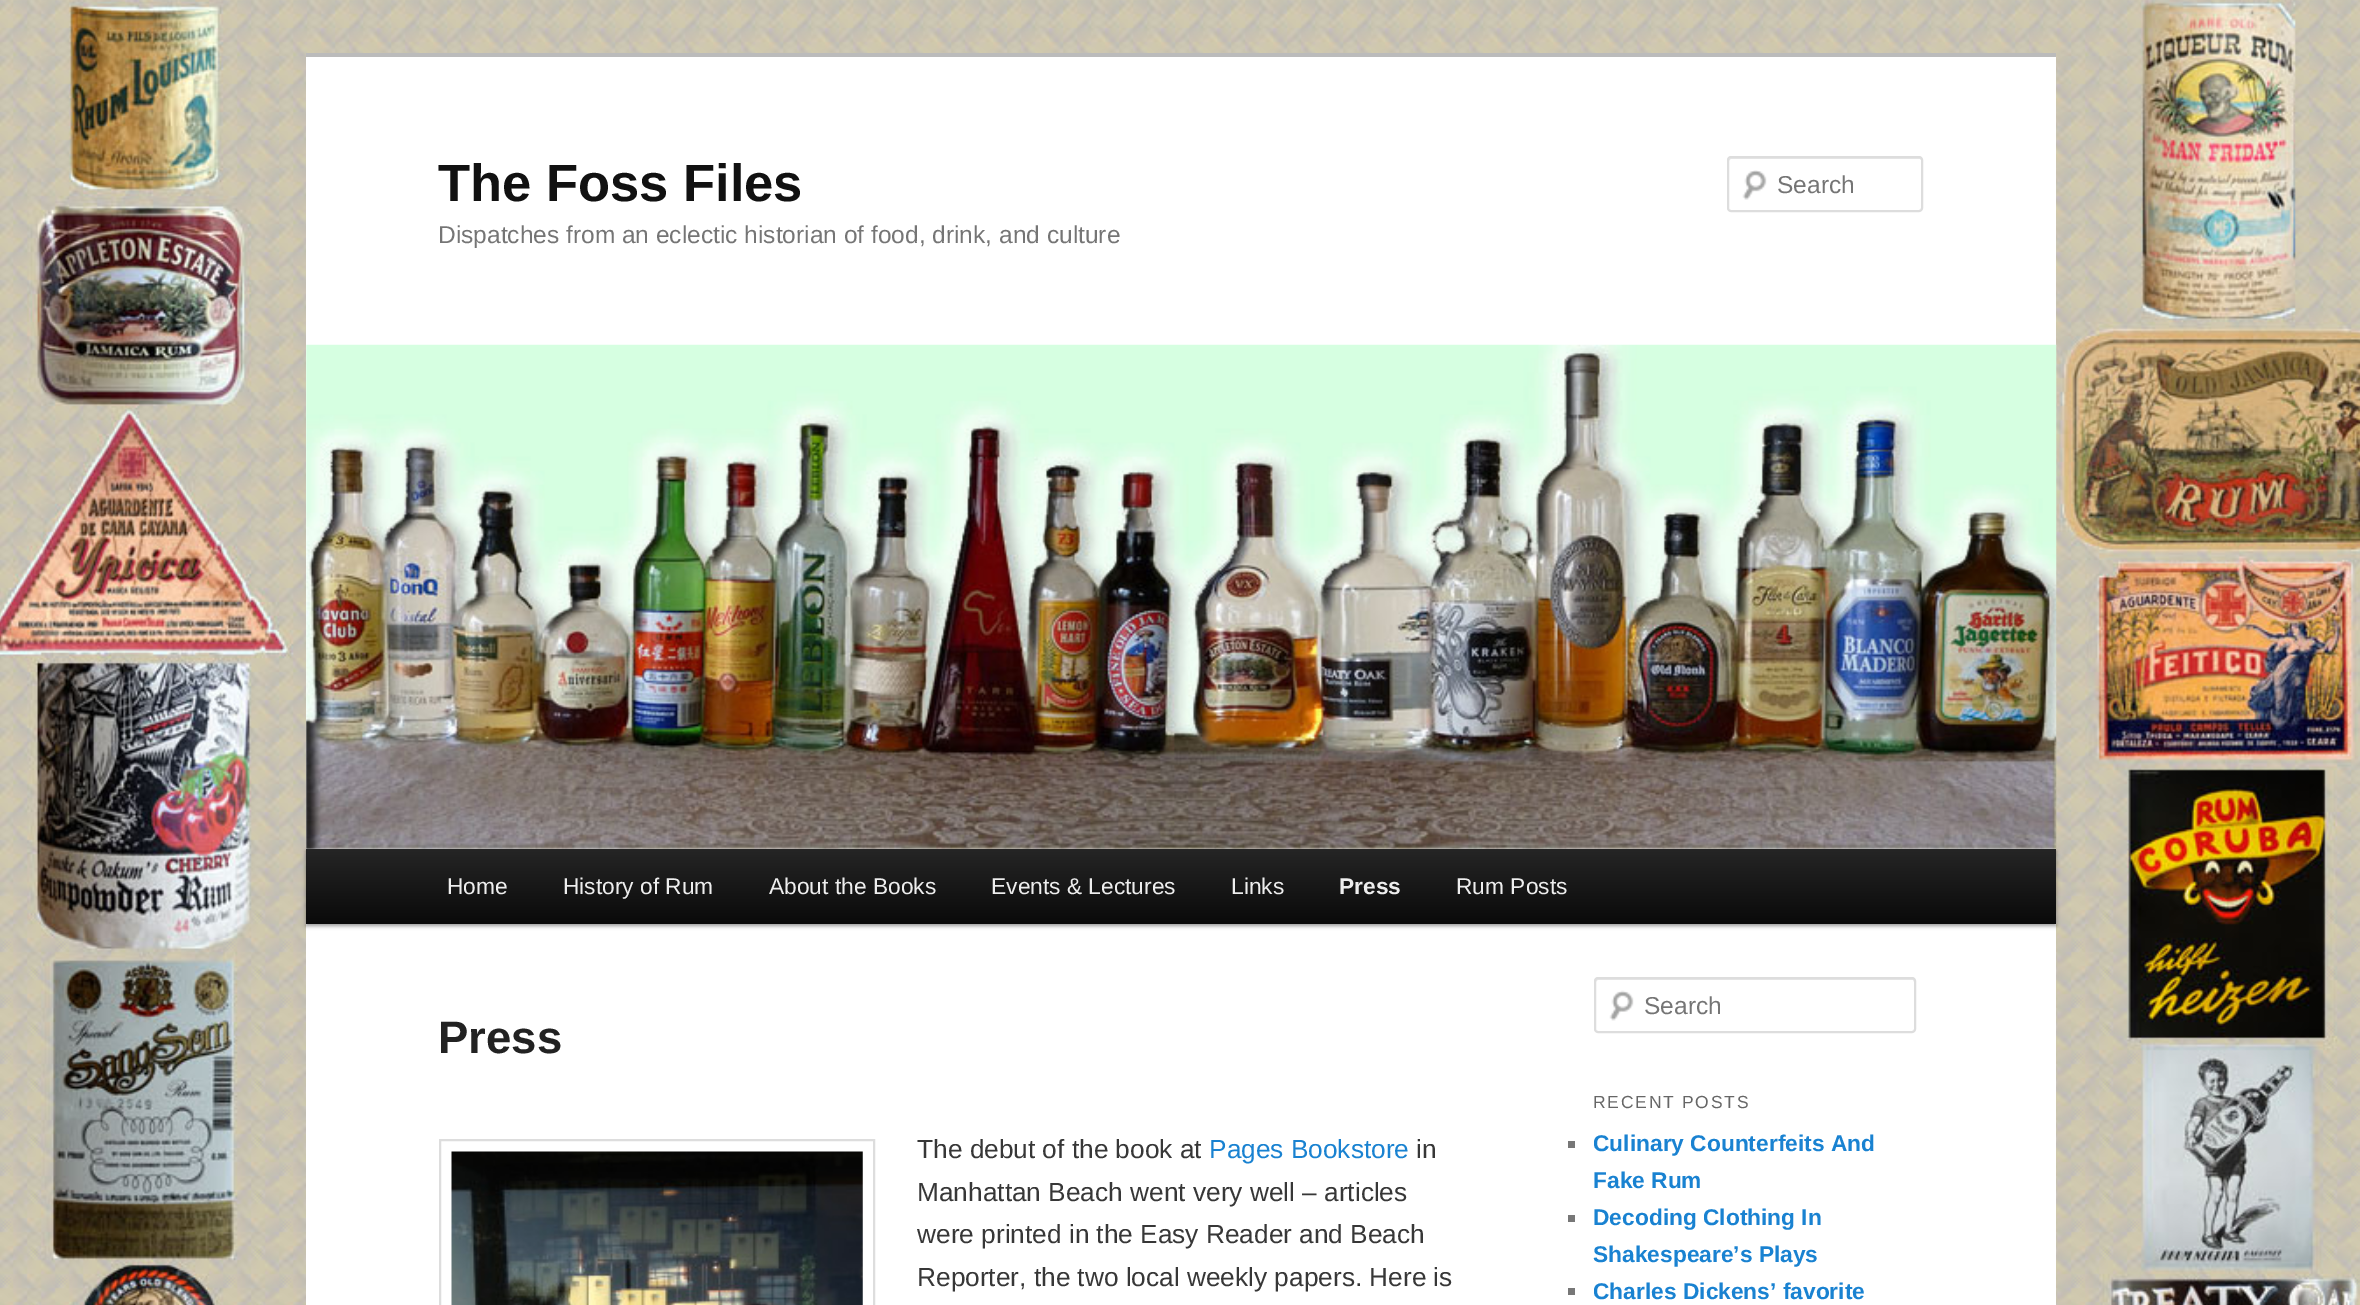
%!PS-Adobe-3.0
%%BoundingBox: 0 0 2360 1305
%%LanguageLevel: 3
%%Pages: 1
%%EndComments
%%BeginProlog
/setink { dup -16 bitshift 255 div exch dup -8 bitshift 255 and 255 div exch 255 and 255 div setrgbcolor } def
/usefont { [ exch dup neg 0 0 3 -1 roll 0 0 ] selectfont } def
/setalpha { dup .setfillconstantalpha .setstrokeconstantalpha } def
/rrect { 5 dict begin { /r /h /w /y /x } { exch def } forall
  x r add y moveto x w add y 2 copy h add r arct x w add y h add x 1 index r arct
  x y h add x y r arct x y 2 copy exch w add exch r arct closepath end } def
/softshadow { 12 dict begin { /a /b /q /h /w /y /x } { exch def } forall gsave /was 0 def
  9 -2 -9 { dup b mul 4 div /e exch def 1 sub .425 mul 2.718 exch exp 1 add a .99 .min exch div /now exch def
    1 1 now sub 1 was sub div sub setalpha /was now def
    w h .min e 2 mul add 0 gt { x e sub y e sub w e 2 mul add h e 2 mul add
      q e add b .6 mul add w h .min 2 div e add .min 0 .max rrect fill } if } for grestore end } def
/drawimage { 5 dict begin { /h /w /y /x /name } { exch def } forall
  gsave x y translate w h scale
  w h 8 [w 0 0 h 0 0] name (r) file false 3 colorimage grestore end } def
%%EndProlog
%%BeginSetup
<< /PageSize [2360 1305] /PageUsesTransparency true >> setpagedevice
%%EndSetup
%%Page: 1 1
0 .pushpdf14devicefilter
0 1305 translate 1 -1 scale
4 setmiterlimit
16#FFFFFF setink
0 0 2360 1305 rectfill
(img1.raw) 0 0 2360 1305 drawimage
306 57 1750 1248 rectfill
16#BBBBBB setink
306 53 1750 4 rectfill
/LiberationSans-Bold 52.5 usefont
16#111111 setink
438 201 moveto (The Foss Files) show
/LiberationSans-Regular 24.5 usefont
16#757575 setink
438 243 moveto (Dispatches from an eclectic historian of food, drink, and culture) show
(img2.raw) 1742 170 25 30 drawimage
16#E6E6E6 setink
1731 159 moveto 1920 159 lineto 1922 160 lineto 1922 161 lineto 1922 160 lineto 1922 159 1921 158 1920 158 curveto 1731 158 lineto 1730 158 1729 159 1729 160 curveto 1729 161 lineto 1729 160 1730 159 1731 159 curveto closepath fill
16#DDDDDD setink
2 setlinewidth
1728 157 194 54 3 rrect stroke
16#757575 setink
1777 193 moveto (Search) show
16#000000 setink
306 851 1750 75 0 2 0.4 softshadow
(img3.raw) 306 344 1751 505 drawimage
gsave 306 849 moveto 2056 849 lineto 2056 924 lineto 306 924 lineto closepath clip newpath
<< /ShadingType 2 /ColorSpace /DeviceRGB /Coords [1181 849 1181 924] /Extend [true true] /Function << /FunctionType 2 /Domain [0 1] /C0 [0.145 0.145 0.145] /C1 [0.039 0.039 0.039] /N 1 >> >> shfill grestore
/LiberationSans-Regular 22.75 usefont
16#EEEEEE setink
[
    [(Home) 447 894]
    [(History of Rum) 563 894]
    [(About the Books) 769 894]
    [(Events & Lectures) 991 894]
    [(Links) 1231 894]
] { aload pop moveto show } forall
/LiberationSans-Bold 22.75 usefont
1339 894 moveto (Press) show
/LiberationSans-Regular 22.75 usefont
1456 894 moveto (Rum Posts) show
/LiberationSans-Bold 45.5 usefont
16#222222 setink
438 1053 moveto (Press) show
16#DDDDDD setink
440 1140 434 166 rectstroke
(img4.raw) 451 1151 412 154 drawimage
/LiberationSans-Regular 26.25 usefont
16#373737 setink
917 1158 moveto (The debut of the book at) show
16#1982D1 setink
1209 1158 moveto (Pages Bookstore) show
16#373737 setink
[
    [(in) 1416 1158]
    [(Manhattan Beach went very well – articles) 917 1201]
    [(were printed in the Easy Reader and Beach) 917 1243]
    [(Reporter, the two local weekly papers. Here is) 917 1286]
] { aload pop moveto show } forall
(img5.raw) 1609 990 25 31 drawimage
16#E6E6E6 setink
1598 980 moveto 1913 980 lineto 1914 980 1914 981 1914 982 curveto 1914 1031 lineto 1915 1030 1915 1030 1915 1029 curveto 1915 980 lineto 1915 979 1914 978 1913 978 curveto 1598 978 lineto 1597 978 1596 979 1596 980 curveto 1596 982 lineto 1596 981 1597 980 1598 980 curveto closepath fill
16#DDDDDD setink
1595 978 320 54 3 rrect stroke
/LiberationSans-Regular 24.5 usefont
16#757575 setink
1644 1014 moveto (Search) show
/LiberationSans-Regular 17.5 usefont
16#666666 setink
1593 1108 moveto 1.75 0 (RECENT POSTS) ashow
16#777777 setink
1568 1141 7 7 rectfill
/LiberationSans-Bold 22.75 usefont
16#1982D1 setink
1593 1151 moveto (Culinary Counterfeits And) show
1593 1188 moveto (Fake Rum) show
16#777777 setink
1568 1215 7 7 rectfill
16#1982D1 setink
1593 1225 moveto (Decoding Clothing In) show
1593 1262 moveto (Shakespeare’s Plays) show
16#777777 setink
1568 1288 7 7 rectfill
16#1982D1 setink
1593 1299 moveto (Charles Dickens’ favorite) show
.poppdf14devicefilter showpage
%%EOF
